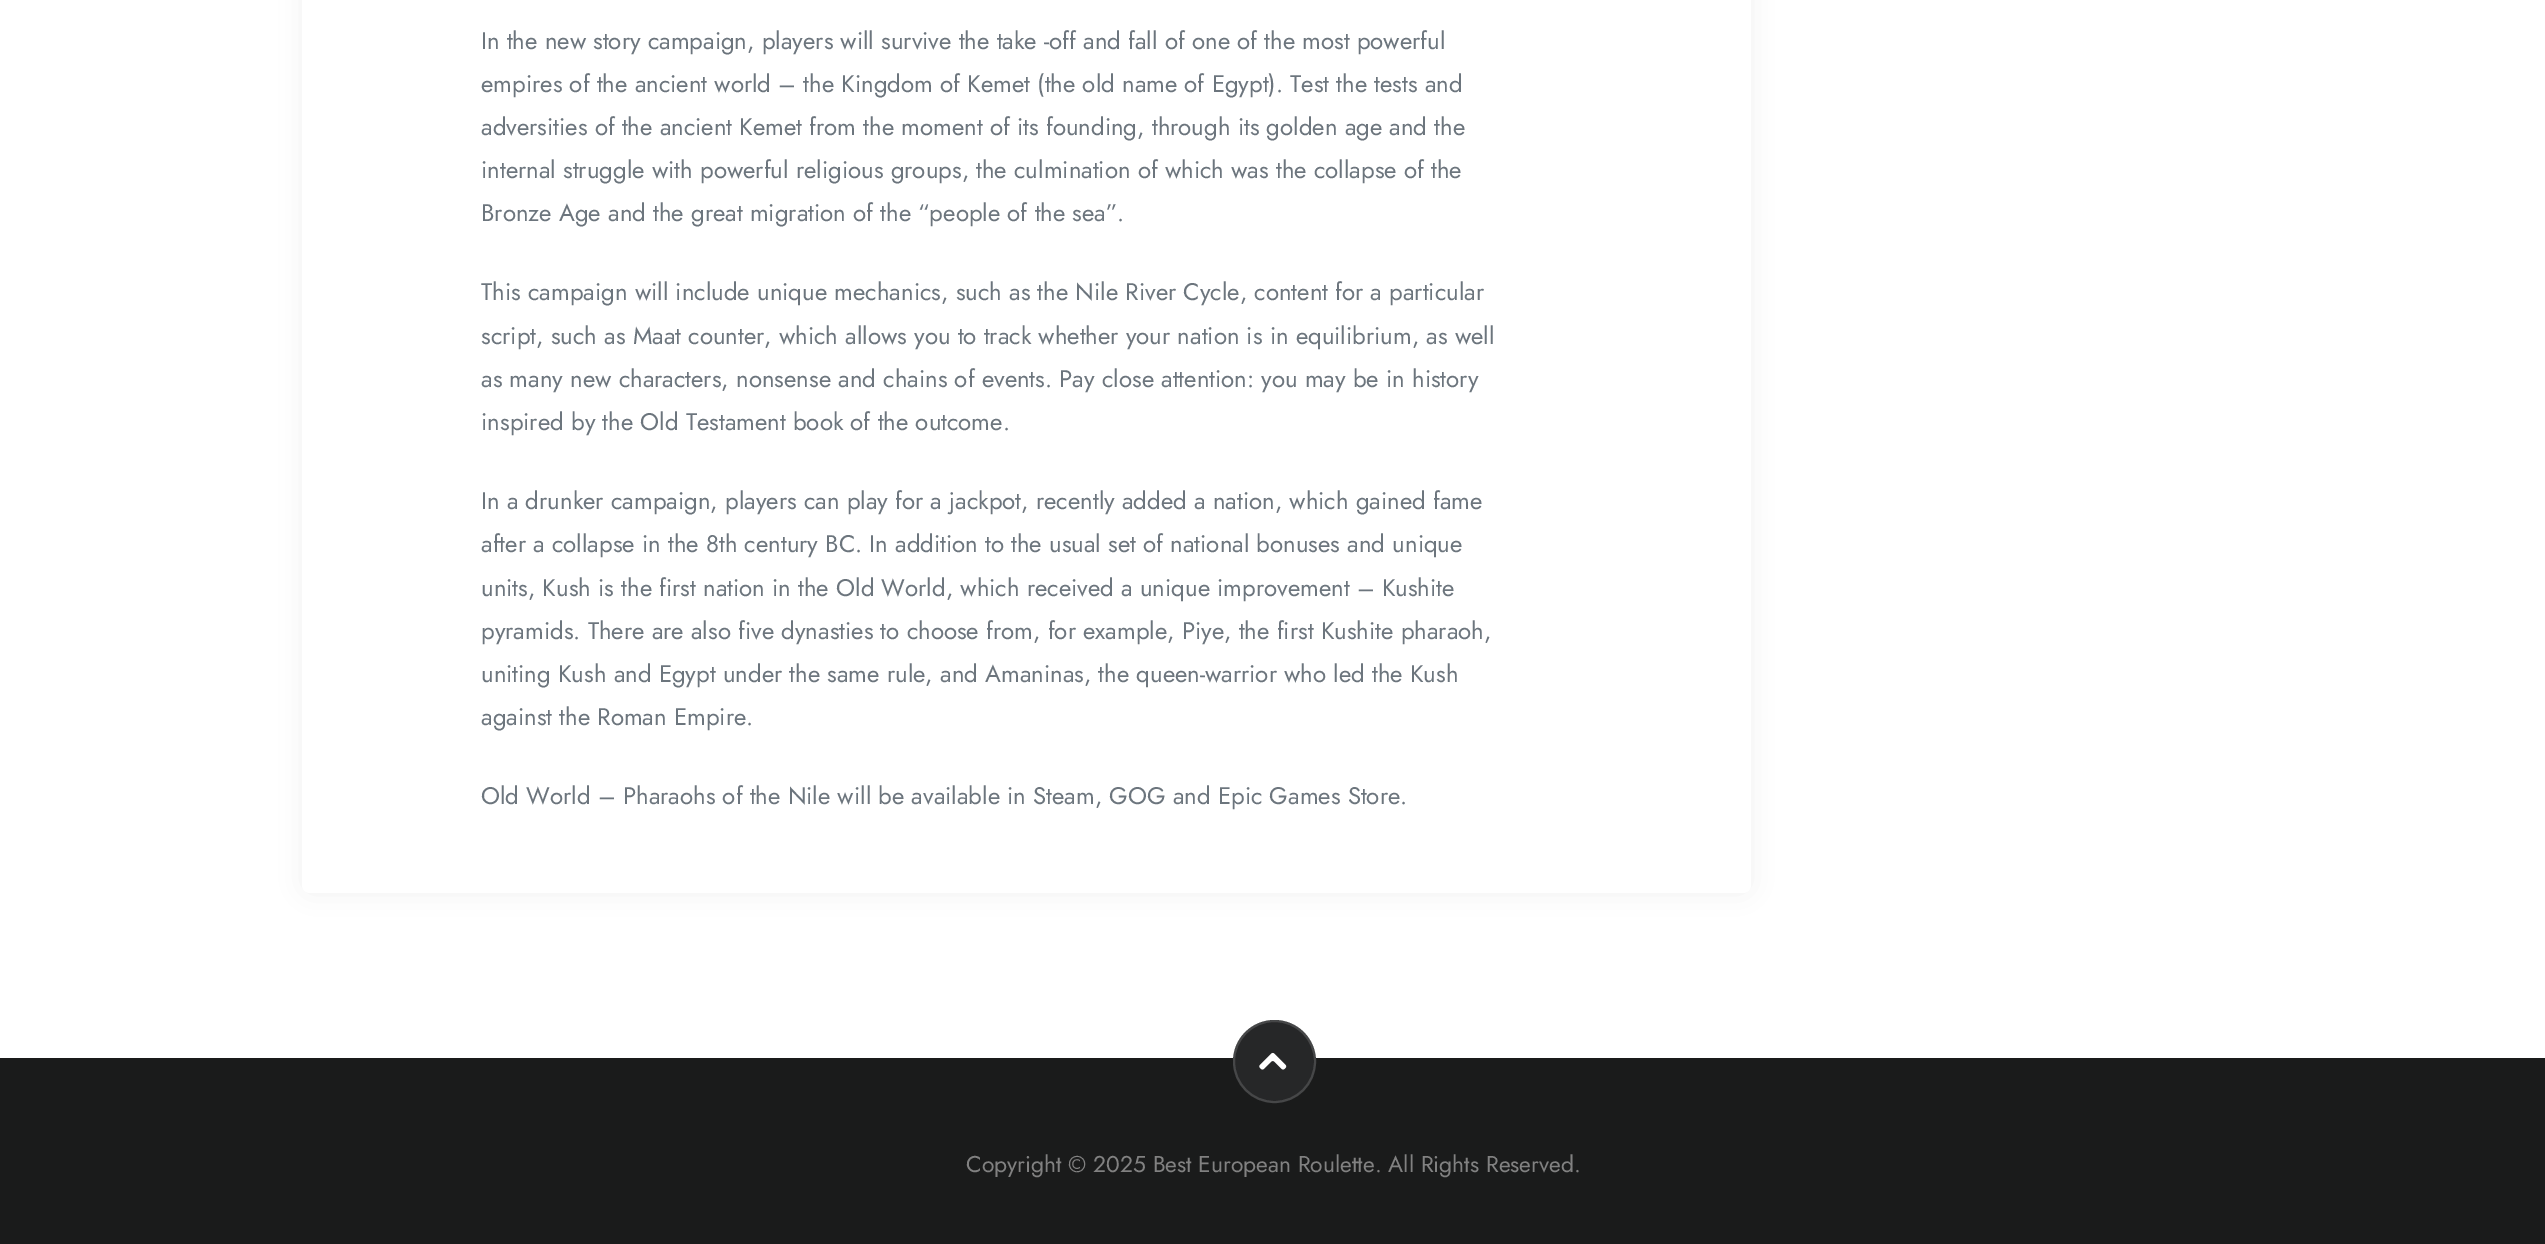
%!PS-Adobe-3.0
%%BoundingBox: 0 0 2545 1244
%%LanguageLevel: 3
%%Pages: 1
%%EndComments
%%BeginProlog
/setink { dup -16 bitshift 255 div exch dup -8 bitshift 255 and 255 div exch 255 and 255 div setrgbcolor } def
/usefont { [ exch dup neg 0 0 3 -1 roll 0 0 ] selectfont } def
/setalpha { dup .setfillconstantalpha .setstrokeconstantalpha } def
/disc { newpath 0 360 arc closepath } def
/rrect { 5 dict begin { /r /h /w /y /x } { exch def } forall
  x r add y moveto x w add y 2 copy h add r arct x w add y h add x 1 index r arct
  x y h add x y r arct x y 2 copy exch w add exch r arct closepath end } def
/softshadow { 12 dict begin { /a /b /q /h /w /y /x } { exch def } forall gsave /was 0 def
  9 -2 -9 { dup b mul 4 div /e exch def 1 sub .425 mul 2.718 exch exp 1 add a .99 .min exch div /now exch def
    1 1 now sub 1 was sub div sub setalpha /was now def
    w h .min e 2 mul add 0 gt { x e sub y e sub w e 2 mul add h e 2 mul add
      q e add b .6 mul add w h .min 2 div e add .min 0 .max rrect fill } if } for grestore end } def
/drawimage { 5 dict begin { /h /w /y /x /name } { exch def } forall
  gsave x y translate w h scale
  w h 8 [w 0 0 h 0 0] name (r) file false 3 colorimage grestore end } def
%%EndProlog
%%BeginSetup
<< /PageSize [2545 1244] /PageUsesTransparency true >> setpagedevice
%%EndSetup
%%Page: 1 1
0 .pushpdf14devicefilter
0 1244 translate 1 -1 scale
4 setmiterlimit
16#FFFFFF setink
0 0 2545 1244 rectfill
16#000000 setink
302 -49 1449 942 8 13.5 0.05 softshadow
16#FFFFFF setink
302 -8 1449 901 8 rrect fill
/Jost-Regular 24 usefont
16#6C757D setink
[
    [(In the new story campaign, players will survive the take -off and fall of one of the most powerful) 481 49]
    [(empires of the ancient world – the Kingdom of Kemet \(the old name of Egypt\). Test the tests and) 481 92]
    [(adversities of the ancient Kemet from the moment of its founding, through its golden age and the) 481 135]
    [(internal struggle with powerful religious groups, the culmination of which was the collapse of the) 481 178]
    [(Bronze Age and the great migration of the “people of the sea”.) 481 221]
    [(This campaign will include unique mechanics, such as the Nile River Cycle, content for a particular) 481 300]
    [(script, such as Maat counter, which allows you to track whether your nation is in equilibrium, as well) 481 344]
    [(as many new characters, nonsense and chains of events. Pay close attention: you may be in history) 481 387]
    [(inspired by the Old Testament book of the outcome.) 481 430]
    [(In a drunker campaign, players can play for a jackpot, recently added a nation, which gained fame) 481 509]
    [(after a collapse in the 8th century BC. In addition to the usual set of national bonuses and unique) 481 552]
    [(units, Kush is the first nation in the Old World, which received a unique improvement – Kushite) 481 596]
    [(pyramids. There are also five dynasties to choose from, for example, Piye, the first Kushite pharaoh,) 481 639]
    [(uniting Kush and Egypt under the same rule, and Amaninas, the queen-warrior who led the Kush) 481 682]
    [(against the Roman Empire.) 481 725]
    [(Old World – Pharaohs of the Nile will be available in Steam, GOG and Epic Games Store.) 481 804]
] { aload pop moveto show } forall
16#1A1B1B setink
0 1058 2545 186 rectfill
16#262728 setink
1274.5 1061.5 41.5 disc fill
0.15 setalpha
16#FFFFFF setink
2 setlinewidth
1274.5 1061.5 40.5 disc stroke
1 setalpha
(img1.raw) 1259 1052 28 18 drawimage
/Jost-Regular 22.8 usefont
16#818181 setink
966 1172 moveto (Copyright © 2025 Best European Roulette. All Rights Reserved.) show
.poppdf14devicefilter showpage
%%EOF
